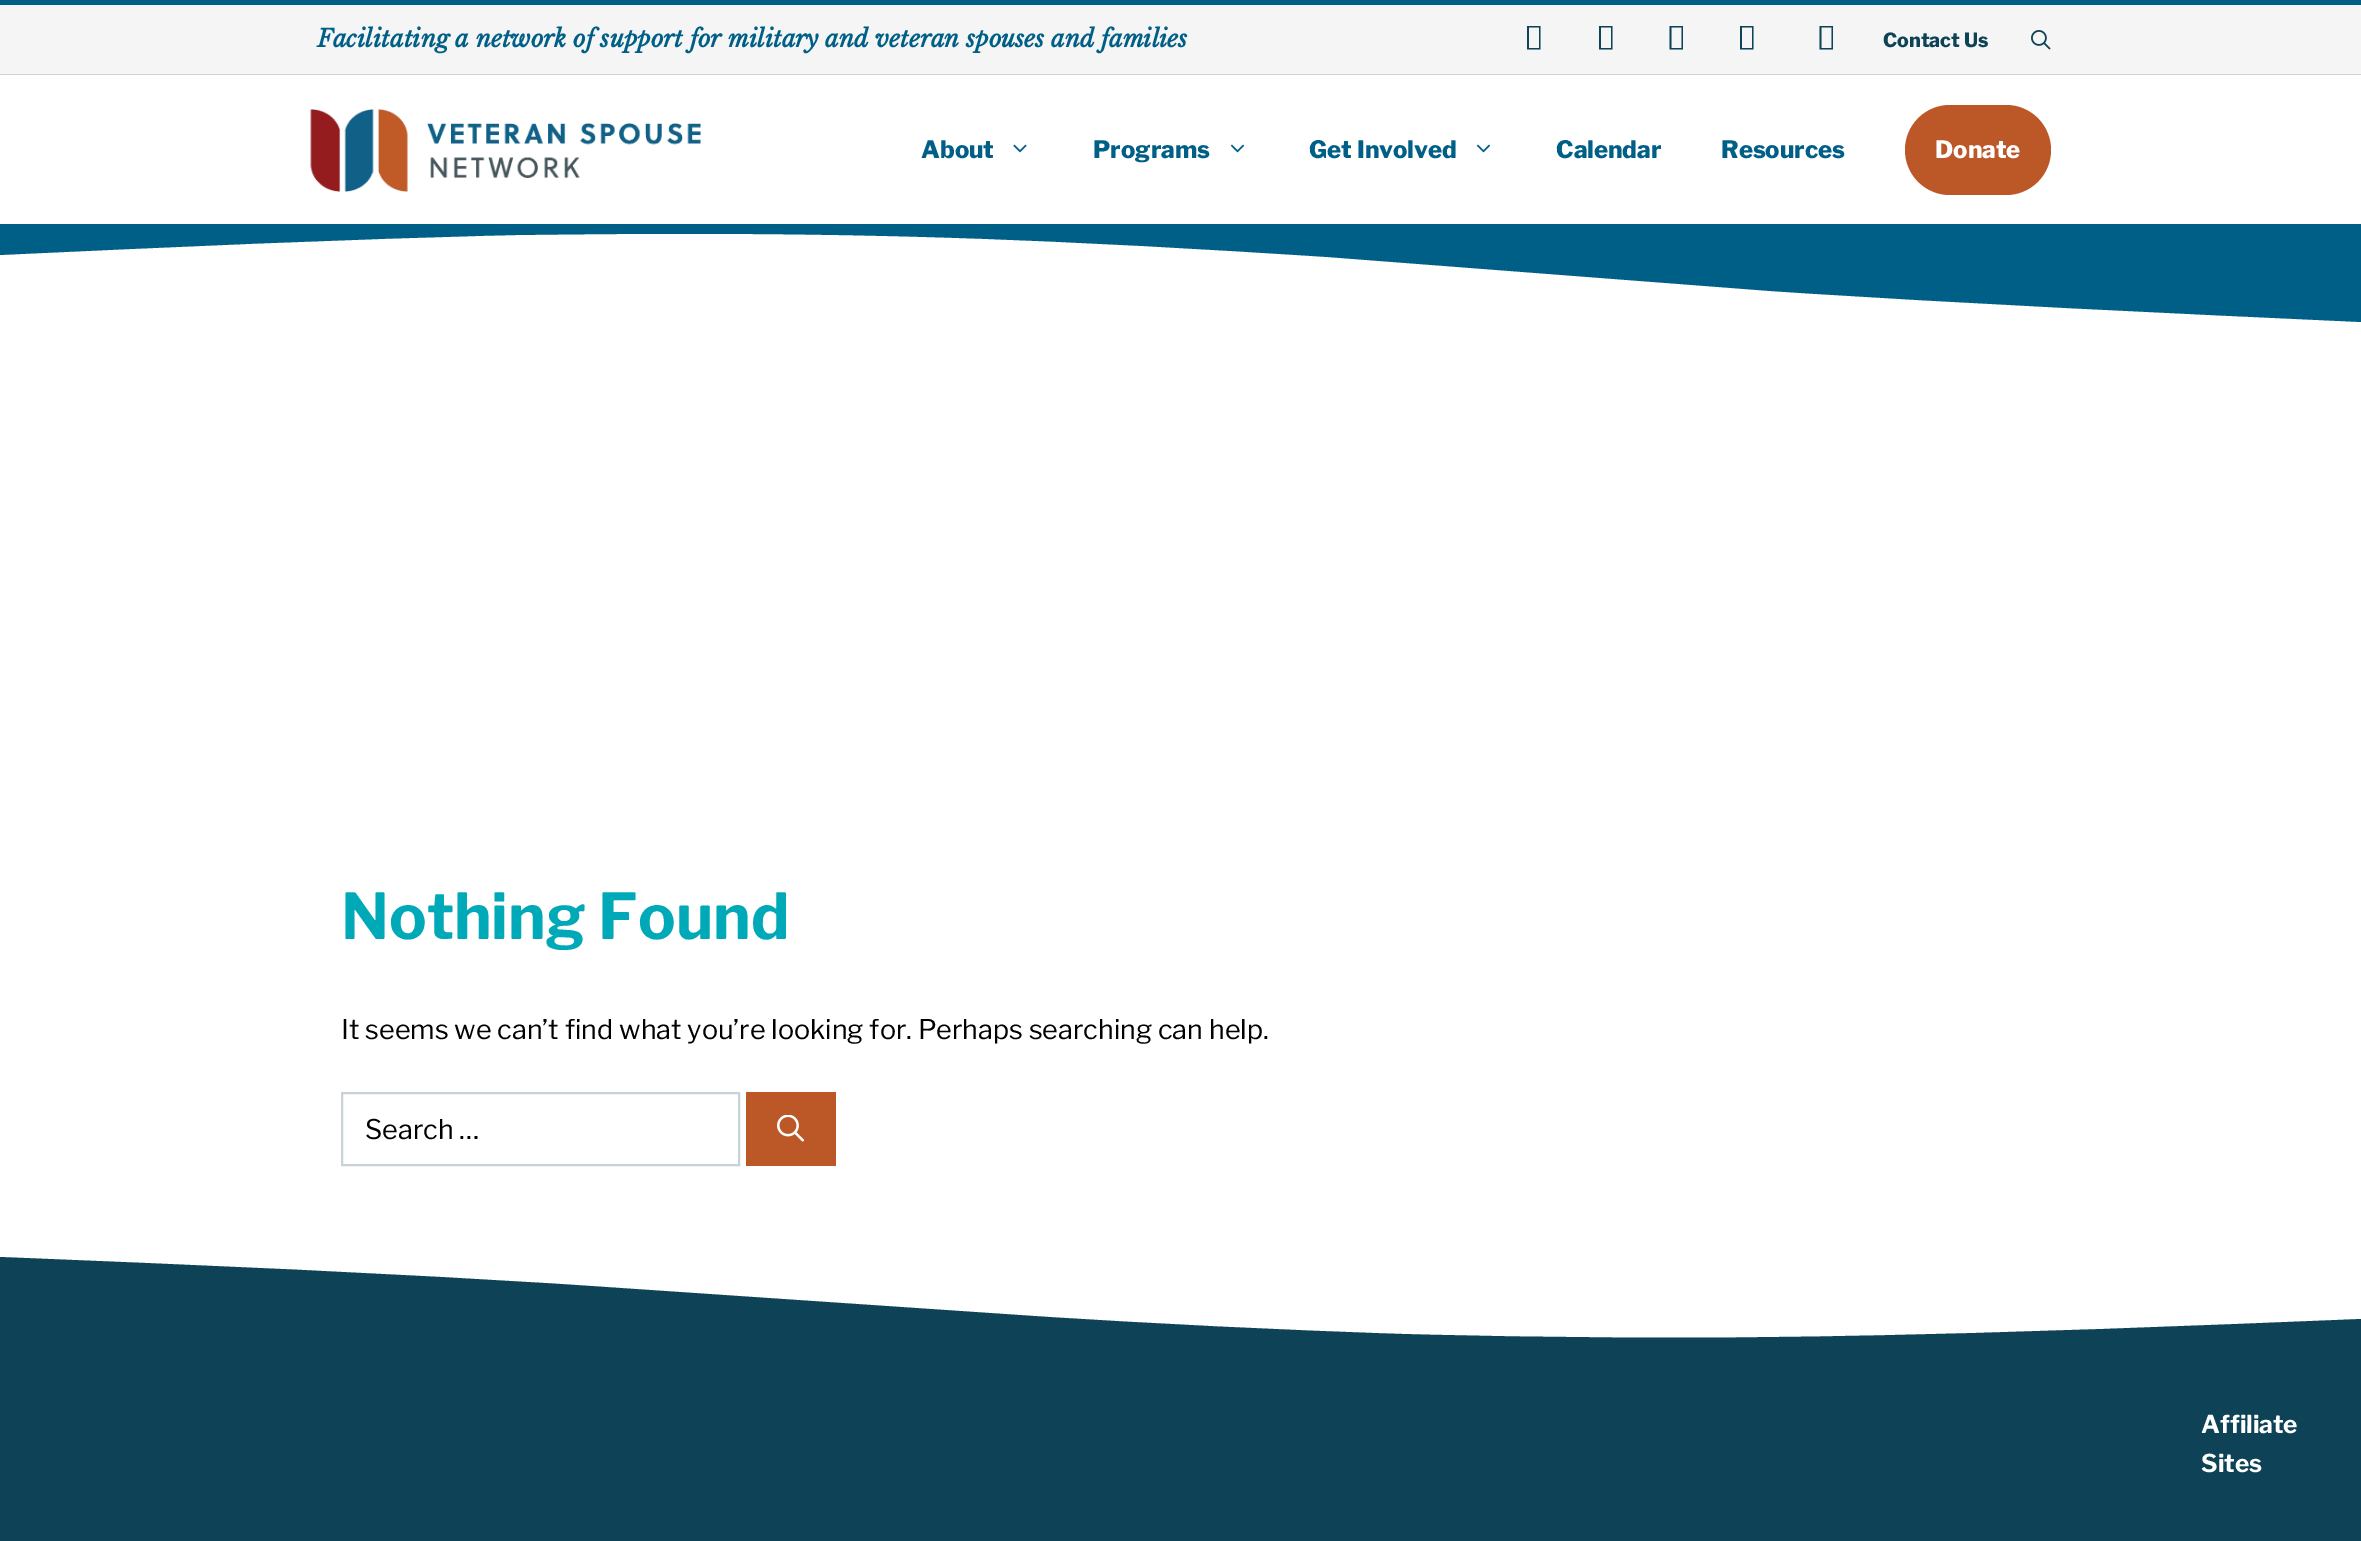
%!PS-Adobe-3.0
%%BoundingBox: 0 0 2361 1541
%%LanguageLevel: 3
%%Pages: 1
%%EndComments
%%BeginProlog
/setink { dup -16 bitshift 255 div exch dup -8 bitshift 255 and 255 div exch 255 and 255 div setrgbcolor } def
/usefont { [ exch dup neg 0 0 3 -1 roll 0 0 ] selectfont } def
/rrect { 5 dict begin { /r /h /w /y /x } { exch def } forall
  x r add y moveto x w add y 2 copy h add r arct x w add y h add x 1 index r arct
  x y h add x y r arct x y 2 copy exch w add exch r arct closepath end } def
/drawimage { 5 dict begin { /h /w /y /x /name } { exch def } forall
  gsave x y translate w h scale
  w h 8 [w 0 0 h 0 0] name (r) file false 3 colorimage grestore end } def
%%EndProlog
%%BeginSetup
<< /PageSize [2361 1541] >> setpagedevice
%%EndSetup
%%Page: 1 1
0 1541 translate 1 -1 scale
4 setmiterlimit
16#FFFFFF setink
0 0 2361 1541 rectfill
[
    [0 5 2361 69 16#F5F5F5]
    [0 0 2361 5 16#005F86]
    [0 74 2361 1 16#C7D3D8]
] { aload pop setink rectfill } forall
/LibreBaskerville-BoldItalic 24 usefont
16#005F86 setink
317 47 moveto (Facilitating a network of support for military and veteran spouses and families) show
16#0E4256 setink
1527 49.5 moveto 1527 26 lineto 1540.5 26 lineto 1540.5 49.5 lineto closepath 1529 48 moveto 1539 48 lineto 1539 27.5 lineto 1529 27.5 lineto closepath fill
1599 49.5 moveto 1599 26 lineto 1612.5 26 lineto 1612.5 49.5 lineto closepath 1601 48 moveto 1611 48 lineto 1611 27.5 lineto 1601 27.5 lineto closepath fill
1669.5 49.5 moveto 1669.5 26 lineto 1683 26 lineto 1683 49.5 lineto closepath 1671.5 48 moveto 1681.5 48 lineto 1681.5 27.5 lineto 1671.5 27.5 lineto closepath fill
1740 49.5 moveto 1740 26 lineto 1753.5 26 lineto 1753.5 49.5 lineto closepath 1742 48 moveto 1752 48 lineto 1752 27.5 lineto 1742 27.5 lineto closepath fill
1819.5 49.5 moveto 1819.5 26 lineto 1833 26 lineto 1833 49.5 lineto closepath 1821.5 48 moveto 1831.5 48 lineto 1831.5 27.5 lineto 1821.5 27.5 lineto closepath fill
/LibreFranklin-ExtraBold 19.5 usefont
1883 47 moveto (Contact Us) show
(img1.raw) 2031 30 20 20 drawimage
(img2.raw) 310 109 391 83 drawimage
/LibreFranklin-ExtraBold 24 usefont
16#005F86 setink
921 158 moveto (About) show
(img3.raw) 1013 144 14 9 drawimage
1093 158 moveto (Programs) show
(img4.raw) 1230 144 15 9 drawimage
1309 158 moveto (Get Involved) show
(img4.raw) 1476 144 15 9 drawimage
1556 158 moveto (Calendar) show
1721 158 moveto (Resources) show
16#BC5827 setink
1905 105 146 90 45 rrect fill
16#FFFFFF setink
1935 158 moveto (Donate) show
16#005F86 setink
-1 255 moveto 171 247 344 239 516 235 curveto 664 233 811 233 959 238 curveto 1082 242 1205 249 1328 257 curveto 1771 291 lineto 1968 304 2165 313 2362 322 curveto 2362 224 lineto -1 224 lineto closepath fill
/LibreFranklin-Bold 63 usefont
16#00A9B7 setink
341 939 moveto (Nothing Found) show
/LibreFranklin-Regular 27 usefont
16#000000 setink
341 1039 moveto (It seems we can’t find what you’re looking for. Perhaps searching can help.) show
16#C7D3D8 setink
2 setlinewidth
342 1093 397 72 rectstroke
16#000000 setink
365 1139 moveto (Search …) show
16#BC5827 setink
746 1092 90 74 rectfill
(img5.raw) 777 1115 27 27 drawimage
16#0E4256 setink
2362 1319 moveto 2190 1326 2017 1333 1845 1336 curveto 1697 1339 1550 1338 1402 1334 curveto 1279 1330 1156 1324 1033 1316 curveto 590 1286 lineto 393 1273 196 1265 -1 1257 curveto -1 1347 lineto 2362 1347 lineto closepath fill
0 1347 2361 194 rectfill
/LibreFranklin-Bold 24.5 usefont
16#FFFFFF setink
2201 1433 moveto (Affiliate) show
2201 1472 moveto (Sites) show
showpage
%%EOF
